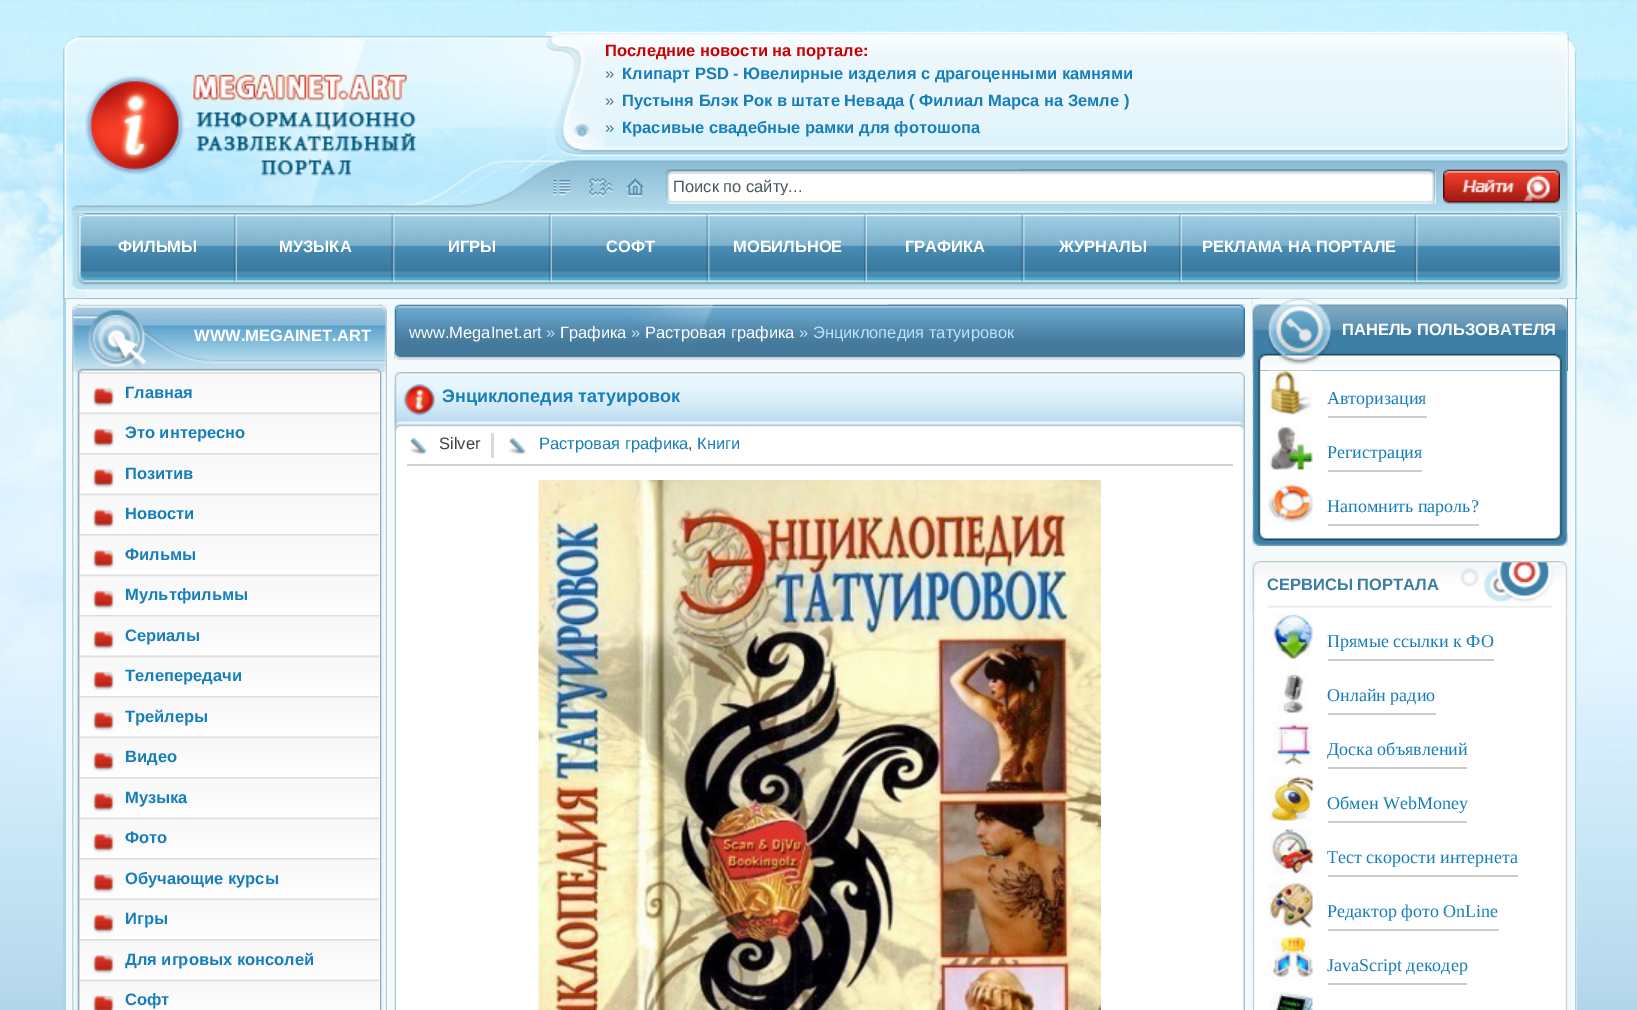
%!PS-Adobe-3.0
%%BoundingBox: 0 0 1637 1010
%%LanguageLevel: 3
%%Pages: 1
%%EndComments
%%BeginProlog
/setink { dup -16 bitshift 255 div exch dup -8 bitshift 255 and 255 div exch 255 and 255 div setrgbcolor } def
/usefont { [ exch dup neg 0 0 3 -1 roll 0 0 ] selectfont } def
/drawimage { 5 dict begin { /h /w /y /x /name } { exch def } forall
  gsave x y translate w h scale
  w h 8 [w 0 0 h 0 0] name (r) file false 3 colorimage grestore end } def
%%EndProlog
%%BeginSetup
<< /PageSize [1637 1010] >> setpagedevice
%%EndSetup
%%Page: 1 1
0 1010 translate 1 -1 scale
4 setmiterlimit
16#FFFFFF setink
0 0 1637 1010 rectfill
(img1.raw) 0 0 1637 1010 drawimage
(img2.raw) 63 56 1514 156 drawimage
16#A9D5EC setink
63 298 3 712 rectfill
16#4183A9 setink
63 212 1514 87 rectfill
(img16.raw) 63 211 1514 88 drawimage
(img17.raw) 63 211 23 88 drawimage
(img20.raw) 391 211 4 71 drawimage
(img21.raw) 548 211 4 71 drawimage
(img3.raw) 63 35 516 177 drawimage
(img18.raw) 1555 211 22 88 drawimage
(img4.raw) 1561 38 16 174 drawimage
(img5.raw) 85 71 331 105 drawimage
(img6.raw) 546 31 1023 125 drawimage
(img7.raw) 546 31 59 125 drawimage
(img8.raw) 1562 31 7 125 drawimage
/LiberationSans-Bold 16.5 usefont
16#CC0000 setink
605 56 moveto (Последние новости на портале:) show
/LiberationSans-Regular 16.5 usefont
16#537386 setink
605 79 moveto (») show
/LiberationSans-Bold 16.5 usefont
16#177EBB setink
622 79 moveto (Клипарт PSD - Ювелирные изделия с драгоценными камнями) show
/LiberationSans-Regular 16.5 usefont
16#537386 setink
605 106 moveto (») show
/LiberationSans-Bold 16.5 usefont
16#177EBB setink
622 106 moveto (Пустыня Блэк Рок в штате Невада \( Филиал Марса на Земле \)) show
/LiberationSans-Regular 16.5 usefont
16#537386 setink
605 133 moveto (») show
/LiberationSans-Bold 16.5 usefont
16#177EBB setink
622 133 moveto (Красивые свадебные рамки для фотошопа) show
(img9.raw) 553 179 18 17 drawimage
(img10.raw) 589 178 24 19 drawimage
(img11.raw) 626 178 18 19 drawimage
16#FFFFFF setink
1435 170 1 34 rectfill
(img12.raw) 666 169 770 35 drawimage
(img13.raw) 1020 169 416 35 drawimage
(img14.raw) 1020 169 416 26 drawimage
gsave
674 177 754 18 rectclip
/LiberationSans-Regular 16.5 usefont
16#4A555B setink
673 192 moveto (Поиск по сайту...) show
grestore
(img15.raw) 1443 169 117 35 drawimage
(img19.raw) 233 212 4 70 drawimage
[
    [(ФИЛЬМЫ) 118 252]
    [(МУЗЫКА) 279 252]
    [(ИГРЫ) 448 252]
] { aload pop moveto show } forall
(img22.raw) 706 211 4 71 drawimage
606 252 moveto (СОФТ) show
(img23.raw) 863 211 4 71 drawimage
733 252 moveto (МОБИЛЬНОЕ) show
(img24.raw) 1021 211 4 71 drawimage
905 252 moveto (ГРАФИКА) show
(img25.raw) 1178 211 4 71 drawimage
1059 252 moveto (ЖУРНАЛЫ) show
(img26.raw) 1414 211 4 71 drawimage
1202 252 moveto (РЕКЛАМА НА ПОРТАЛЕ) show
16#F4F9FC setink
66 299 1511 711 rectfill
(img27.raw) 1575 299 2 711 drawimage
(img28.raw) 72 304 315 706 drawimage
(img29.raw) 72 304 315 68 drawimage
16#FFFFFF setink
194 341 moveto (WWW.MEGAINET.ART) show
379 372 1 638 rectfill
(img30.raw) 79 372 301 41 drawimage
16#177EBB setink
125 398 moveto (Главная) show
(img31.raw) 79 412 301 41 drawimage
125 438 moveto (Это интересно) show
(img30.raw) 79 453 301 41 drawimage
125 479 moveto (Позитив) show
(img31.raw) 79 493 301 41 drawimage
125 519 moveto (Новости) show
(img30.raw) 79 534 301 41 drawimage
125 560 moveto (Фильмы) show
(img31.raw) 79 574 301 41 drawimage
125 600 moveto (Мультфильмы) show
(img30.raw) 79 615 301 41 drawimage
125 641 moveto (Сериалы) show
(img31.raw) 79 655 301 41 drawimage
125 681 moveto (Телепередачи) show
(img30.raw) 79 696 301 41 drawimage
125 722 moveto (Трейлеры) show
(img32.raw) 79 736 301 41 drawimage
125 762 moveto (Видео) show
(img33.raw) 79 777 301 41 drawimage
125 803 moveto (Музыка) show
(img34.raw) 79 817 301 41 drawimage
125 843 moveto (Фото) show
(img33.raw) 79 858 301 41 drawimage
125 884 moveto (Обучающие курсы) show
(img34.raw) 79 898 301 41 drawimage
125 924 moveto (Игры) show
(img33.raw) 79 939 301 41 drawimage
125 965 moveto (Для игровых консолей) show
(img35.raw) 79 979 301 31 drawimage
125 1005 moveto (Софт) show
(img36.raw) 394 304 851 56 drawimage
(img37.raw) 888 304 357 47 drawimage
(img38.raw) 394 351 845 9 drawimage
(img39.raw) 1239 351 6 9 drawimage
/LiberationSans-Regular 16.5 usefont
16#FFFFFF setink
409 338 moveto (www.MegaInet.art) show
16#B8E6FE setink
546 338 moveto (») show
16#FFFFFF setink
560 338 moveto (Графика) show
16#B8E6FE setink
631 338 moveto (») show
16#FFFFFF setink
645 338 moveto (Растровая графика) show
16#B8E6FE setink
799 338 moveto (» Энциклопедия татуировок) show
16#FFFFFF setink
395 430 850 580 rectfill
(img40.raw) 394 372 851 59 drawimage
(img41.raw) 870 372 375 59 drawimage
(img42.raw) 394 384 851 47 drawimage
(img43.raw) 870 384 375 47 drawimage
(img44.raw) 403 384 32 32 drawimage
/LiberationSans-Bold 18 usefont
16#177EBB setink
442 402 moveto (Энциклопедия татуировок) show
(img45.raw) 394 430 2 580 drawimage
(img46.raw) 1243 430 2 580 drawimage
16#D1D1D1 setink
407 464 826 2 rectfill
(img47.raw) 409 437 18 18 drawimage
/LiberationSans-Regular 16.5 usefont
16#414141 setink
439 449 moveto (Silver) show
16#D9D9D9 setink
491 433 3 25 rectfill
(img48.raw) 508 437 18 18 drawimage
16#177EBB setink
539 449 moveto (Растровая графика) show
697 449 moveto (Книги) show
16#414141 setink
688 449 moveto (,) show
(img49.raw) 538 480 563 530 drawimage
16#FFFFFF setink
1567 371 1 175 rectfill
(img50.raw) 1252 298 316 248 drawimage
(img51.raw) 1252 532 316 14 drawimage
16#3E7FA6 setink
1253 299 315 72 rectfill
(img52.raw) 1252 298 316 73 drawimage
/LiberationSans-Bold 16.5 usefont
16#FFFFFF setink
1342 335 moveto (ПАНЕЛЬ ПОЛЬЗОВАТЕЛЯ) show
(img53.raw) 1267 370 46 45 drawimage
16#CCCCCC setink
1328 416 99 2 rectfill
/LiberationSerif-Regular 18 usefont
16#177EBB setink
1327 404 moveto (Авторизация) show
(img54.raw) 1268 426 45 44 drawimage
16#CCCCCC setink
1328 470 94 2 rectfill
16#177EBB setink
1327 458 moveto (Регистрация) show
(img55.raw) 1267 478 46 46 drawimage
16#CCCCCC setink
1328 524 151 2 rectfill
16#177EBB setink
1327 512 moveto (Напомнить пароль?) show
16#FFFFFF setink
1567 614 1 396 rectfill
(img56.raw) 1252 561 316 449 drawimage
1253 561 315 53 rectfill
(img57.raw) 1252 561 316 53 drawimage
/LiberationSans-Bold 16.5 usefont
16#3C7DA4 setink
1267 590 moveto (СЕРВИСЫ ПОРТАЛА) show
(img58.raw) 1268 614 45 45 drawimage
16#CCCCCC setink
1328 659 166 2 rectfill
/LiberationSerif-Regular 18 usefont
16#177EBB setink
1327 647 moveto (Прямые ссылки к ФО) show
(img59.raw) 1278 667 31 46 drawimage
16#CCCCCC setink
1328 713 108 2 rectfill
16#177EBB setink
1327 701 moveto (Онлайн радио) show
(img60.raw) 1271 721 42 45 drawimage
16#CCCCCC setink
1328 767 139 2 rectfill
16#177EBB setink
1327 755 moveto (Доска объявлений) show
(img61.raw) 1267 776 46 45 drawimage
16#CCCCCC setink
1328 821 139 2 rectfill
16#177EBB setink
1327 809 moveto (Обмен WebMoney) show
(img62.raw) 1269 829 44 46 drawimage
16#CCCCCC setink
1328 875 190 2 rectfill
16#177EBB setink
1327 863 moveto (Тест скорости интернета) show
(img63.raw) 1267 883 46 46 drawimage
16#CCCCCC setink
1328 929 171 2 rectfill
16#177EBB setink
1327 917 moveto (Редактор фото OnLine) show
(img64.raw) 1268 937 45 44 drawimage
16#CCCCCC setink
1328 983 139 2 rectfill
16#177EBB setink
1327 971 moveto (JavaScript декодер) show
(img65.raw) 1269 991 44 19 drawimage
showpage
%%EOF
